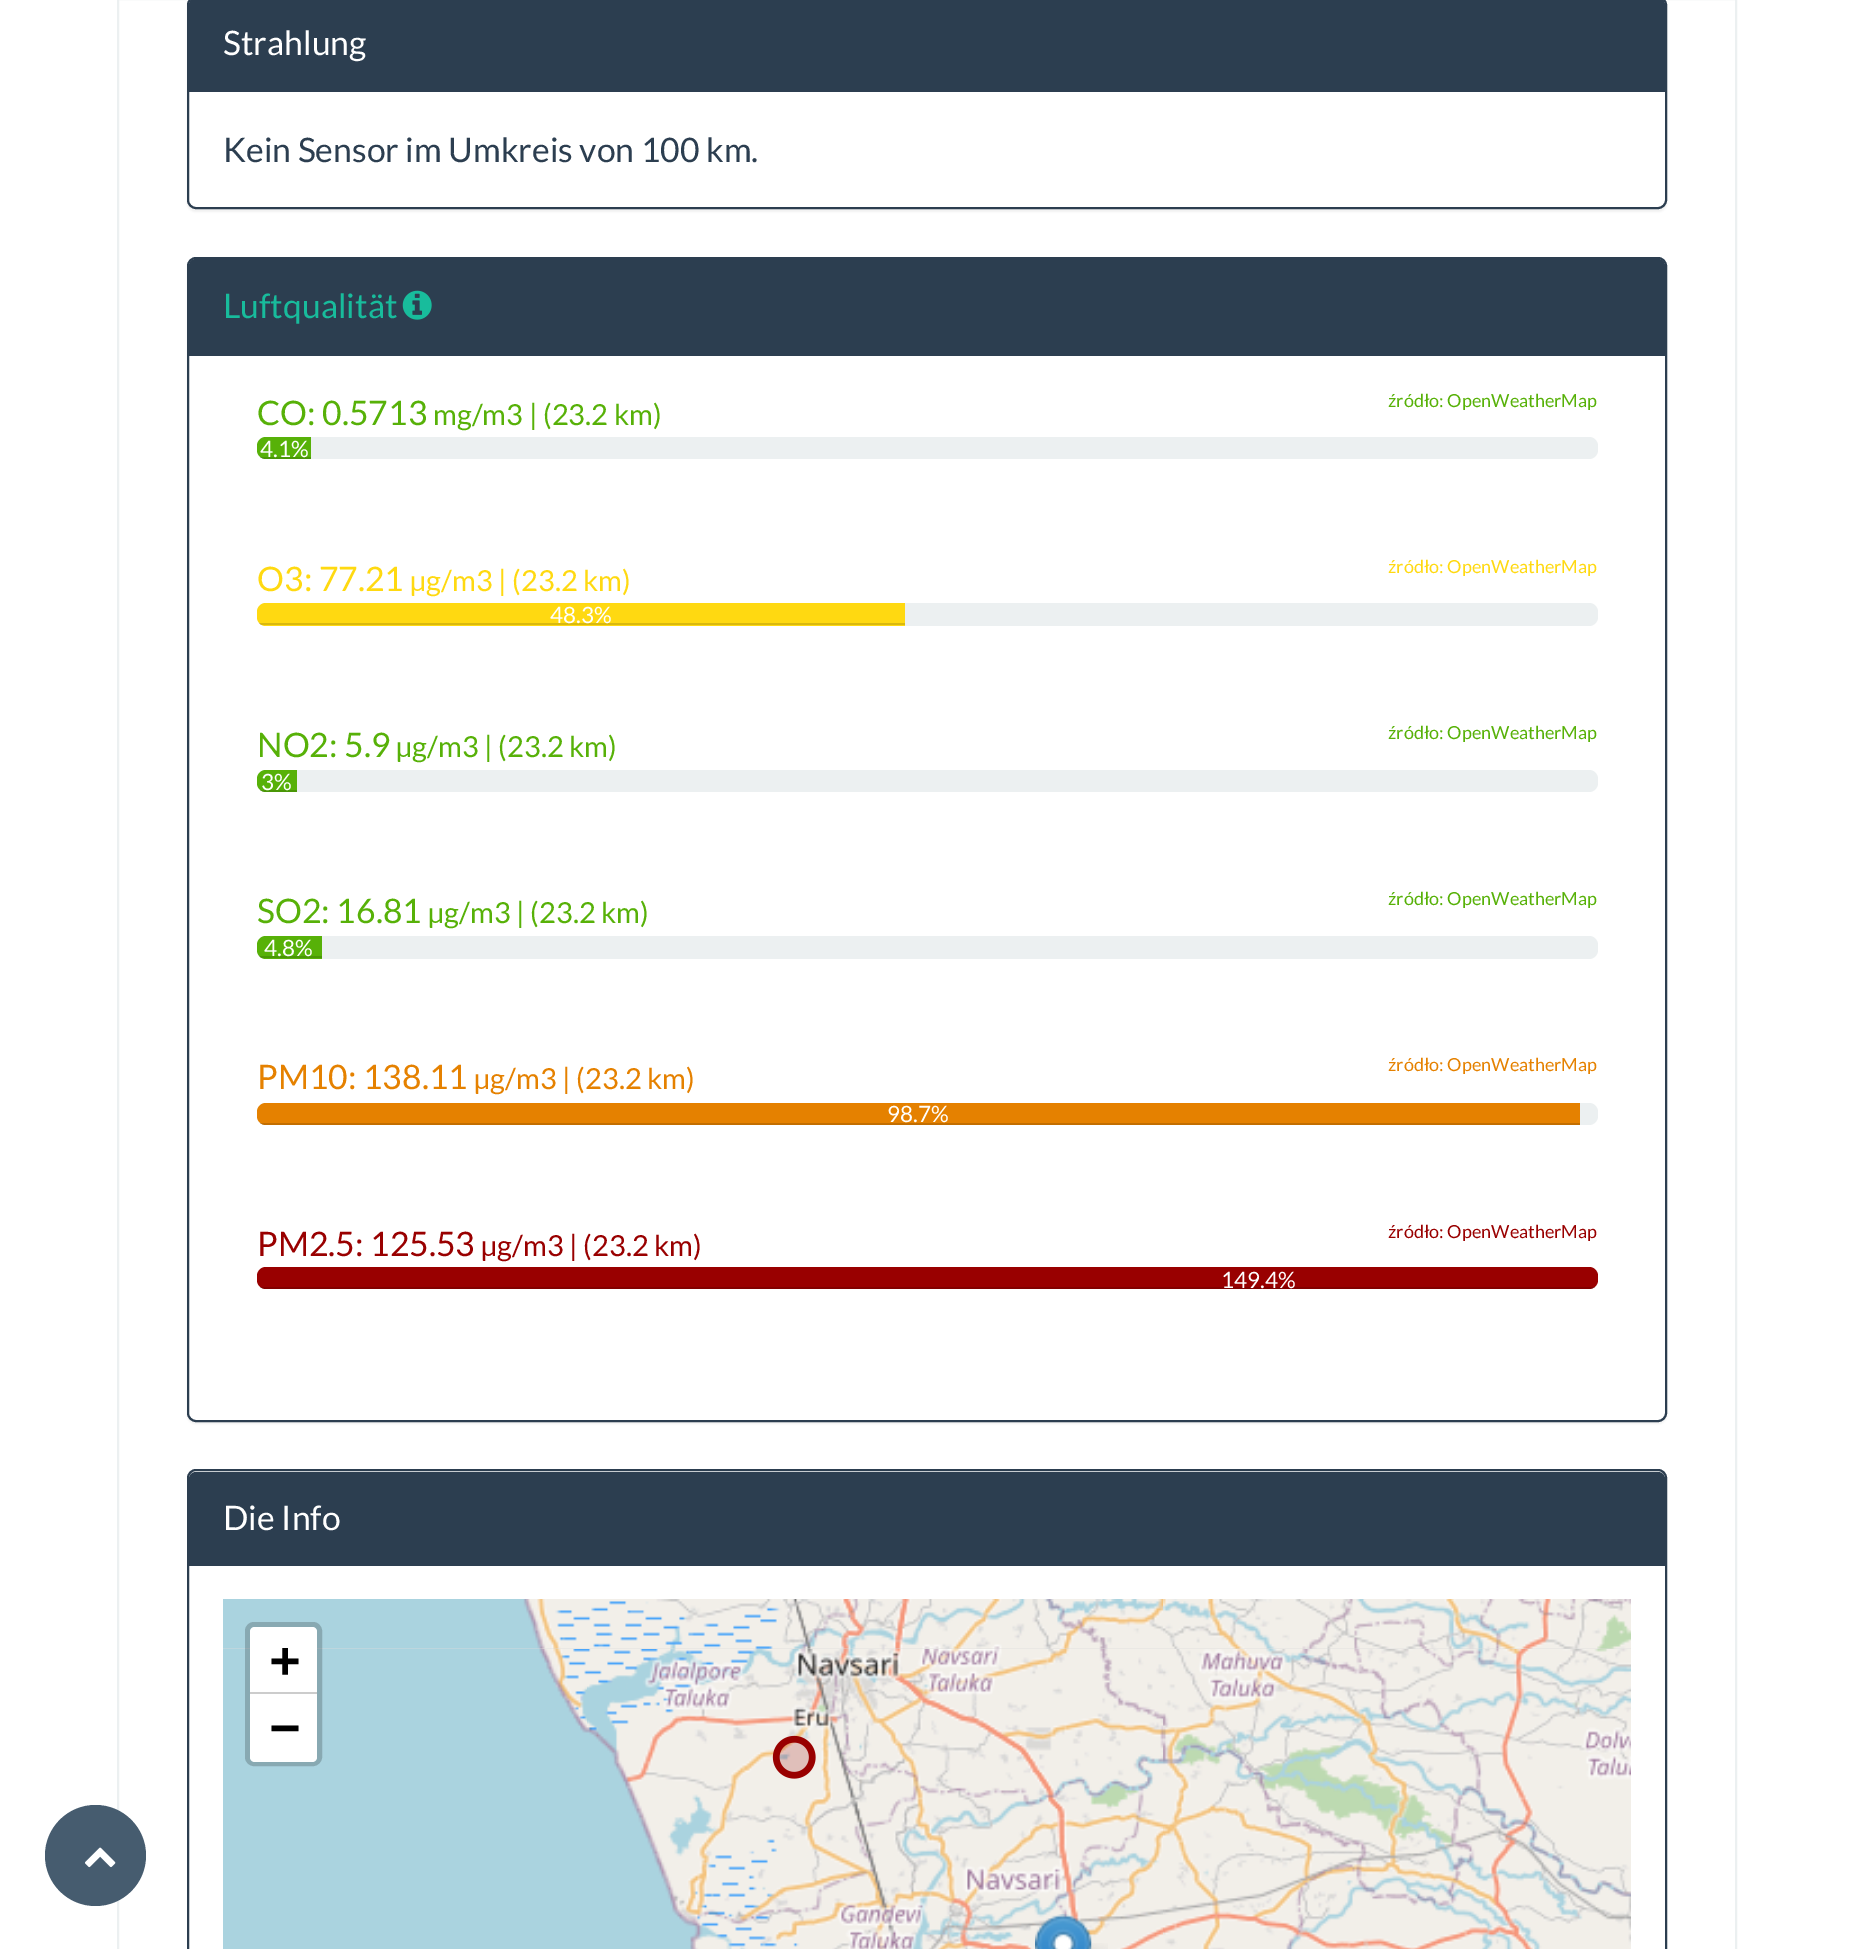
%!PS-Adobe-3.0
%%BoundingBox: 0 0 1853 1949
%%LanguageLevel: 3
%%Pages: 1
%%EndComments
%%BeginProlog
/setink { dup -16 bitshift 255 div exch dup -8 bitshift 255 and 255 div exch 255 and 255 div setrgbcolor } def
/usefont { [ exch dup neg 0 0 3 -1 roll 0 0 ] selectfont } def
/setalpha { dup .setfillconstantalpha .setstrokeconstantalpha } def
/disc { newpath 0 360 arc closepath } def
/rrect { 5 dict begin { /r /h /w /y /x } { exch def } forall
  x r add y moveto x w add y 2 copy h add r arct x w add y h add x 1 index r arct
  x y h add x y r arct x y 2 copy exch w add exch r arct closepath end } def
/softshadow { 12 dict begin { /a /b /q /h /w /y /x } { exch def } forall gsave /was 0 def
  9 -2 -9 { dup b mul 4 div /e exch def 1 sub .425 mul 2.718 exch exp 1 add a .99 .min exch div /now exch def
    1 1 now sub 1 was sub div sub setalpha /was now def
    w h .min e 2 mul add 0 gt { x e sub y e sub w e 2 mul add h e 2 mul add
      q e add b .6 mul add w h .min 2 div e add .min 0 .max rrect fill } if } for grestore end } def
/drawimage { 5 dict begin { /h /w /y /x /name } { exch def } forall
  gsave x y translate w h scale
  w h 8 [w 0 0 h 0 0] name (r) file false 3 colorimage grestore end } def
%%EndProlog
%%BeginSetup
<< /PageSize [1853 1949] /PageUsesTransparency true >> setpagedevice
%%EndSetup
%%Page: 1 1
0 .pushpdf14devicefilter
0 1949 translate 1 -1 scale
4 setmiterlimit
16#FFFFFF setink
0 0 1853 1949 rectfill
16#ECF0F1 setink
2 setlinewidth
118 -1 1618 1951 rectstroke
gsave
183 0 moveto 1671 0 lineto 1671 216 lineto 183 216 lineto closepath 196 -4 moveto 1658 -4 lineto 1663 -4 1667 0 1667 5 curveto 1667 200 lineto 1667 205 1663 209 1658 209 curveto 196 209 lineto 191 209 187 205 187 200 curveto 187 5 lineto 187 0 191 -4 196 -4 curveto closepath eoclip newpath
16#000000 setink
187 -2 1480 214 9 1 0.05 softshadow
grestore
16#2C3E50 setink
188 -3 1478 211 8 rrect stroke
196 -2 moveto 1658 -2 lineto 1662 -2 1665 1 1665 5 curveto 1665 92 lineto 189 92 lineto 189 5 lineto 189 1 192 -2 196 -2 curveto closepath fill
/Lato-Regular 33.75 usefont
16#FFFFFF setink
223 55 moveto (Strahlung) show
16#2C3E50 setink
223 162 moveto (Kein Sensor im Umkreis von 100 km.) show
16#000000 setink
187 259 1480 1165 9 1 0.05 softshadow
16#FFFFFF setink
188 258 1478 1163 8 rrect gsave fill grestore
16#2C3E50 setink
stroke
196 259 moveto 1658 259 lineto 1662 259 1665 262 1665 266 curveto 1665 356 lineto 189 356 lineto 189 266 lineto 189 262 192 259 196 259 curveto closepath fill
16#18BC9C setink
223 318 moveto (Luftqualität) show
(img1.raw) 402 290 30 30 drawimage
16#57B108 setink
257 425 moveto (CO: 0.5713) show
/Lato-Regular 29 usefont
433 425 moveto (mg/m3 | \(23.2 km\)) show
/Lato-Regular 18 usefont
1388 407 moveto (źródło: OpenWeatherMap) show
16#ECF0F1 setink
257 437 1341 22 9 rrect fill
16#57B108 setink
266 437 moveto 311 437 lineto 311 459 lineto 266 459 lineto 261 459 257 455 257 450 curveto 257 446 lineto 257 441 261 437 266 437 curveto closepath fill
gsave
257 437 1341 22 9 rrect clip newpath
0.15 setalpha
16#000000 setink
257 457 54 2 rectfill
grestore
/Lato-Regular 22.5 usefont
16#FFFFFF setink
260 457 moveto (4.1%) show
/Lato-Regular 33.75 usefont
16#FFD911 setink
257 591 moveto (O3: 77.21) show
/Lato-Regular 29 usefont
410 591 moveto (µg/m3 | \(23.2 km\)) show
/Lato-Regular 18 usefont
1388 573 moveto (źródło: OpenWeatherMap) show
16#ECF0F1 setink
257 603 1341 23 9 rrect fill
16#FFD911 setink
266 603 moveto 905 603 lineto 905 626 lineto 266 626 lineto 261 626 257 622 257 617 curveto 257 612 lineto 257 607 261 603 266 603 curveto closepath fill
gsave
257 603 1341 23 9 rrect clip newpath
0.15 setalpha
16#000000 setink
257 623 648 2 rectfill
grestore
/Lato-Regular 22.5 usefont
16#FFFFFF setink
550 623 moveto (48.3%) show
/Lato-Regular 33.75 usefont
16#57B108 setink
257 757 moveto (NO2: 5.9) show
/Lato-Regular 29 usefont
396 757 moveto (µg/m3 | \(23.2 km\)) show
/Lato-Regular 18 usefont
1388 739 moveto (źródło: OpenWeatherMap) show
16#ECF0F1 setink
257 770 1341 22 9 rrect fill
16#57B108 setink
266 770 moveto 297 770 lineto 297 792 lineto 266 792 lineto 261 792 257 788 257 783 curveto 257 779 lineto 257 774 261 770 266 770 curveto closepath fill
gsave
257 770 1341 22 9 rrect clip newpath
0.15 setalpha
16#000000 setink
257 790 40 2 rectfill
grestore
/Lato-Regular 22.5 usefont
16#FFFFFF setink
261 790 moveto (3%) show
/Lato-Regular 33.75 usefont
16#57B108 setink
257 923 moveto (SO2: 16.81) show
/Lato-Regular 29 usefont
428 923 moveto (µg/m3 | \(23.2 km\)) show
/Lato-Regular 18 usefont
1388 905 moveto (źródło: OpenWeatherMap) show
16#ECF0F1 setink
257 936 1341 23 9 rrect fill
16#57B108 setink
266 936 moveto 322 936 lineto 322 959 lineto 266 959 lineto 261 959 257 955 257 950 curveto 257 945 lineto 257 940 261 936 266 936 curveto closepath fill
gsave
257 936 1341 23 9 rrect clip newpath
0.15 setalpha
16#000000 setink
257 956 65 2 rectfill
grestore
/Lato-Regular 22.5 usefont
16#FFFFFF setink
264 956 moveto (4.8%) show
/Lato-Regular 33.75 usefont
16#E58100 setink
257 1089 moveto (PM10: 138.11) show
/Lato-Regular 29 usefont
474 1089 moveto (µg/m3 | \(23.2 km\)) show
/Lato-Regular 18 usefont
1388 1071 moveto (źródło: OpenWeatherMap) show
16#ECF0F1 setink
257 1103 1341 22 9 rrect fill
16#E58100 setink
266 1103 moveto 1580 1103 lineto 1580 1125 lineto 266 1125 lineto 261 1125 257 1121 257 1116 curveto 257 1112 lineto 257 1107 261 1103 266 1103 curveto closepath fill
gsave
257 1103 1341 22 9 rrect clip newpath
0.15 setalpha
16#000000 setink
257 1123 1323 2 rectfill
grestore
/Lato-Regular 22.5 usefont
16#FFFFFF setink
887 1122 moveto (98.7%) show
/Lato-Regular 33.75 usefont
16#990000 setink
257 1256 moveto (PM2.5: 125.53) show
/Lato-Regular 29 usefont
481 1256 moveto (µg/m3 | \(23.2 km\)) show
/Lato-Regular 18 usefont
1388 1238 moveto (źródło: OpenWeatherMap) show
257 1267 1341 22 9 rrect fill
gsave
257 1267 1341 22 9 rrect clip newpath
0.15 setalpha
16#000000 setink
257 1287 1341 2 rectfill
grestore
/Lato-Regular 22.5 usefont
16#FFFFFF setink
1221 1288 moveto (149.4%) show
16#2C3E50 setink
188 1470 1478 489 8 rrect stroke
196 1472 moveto 1658 1472 lineto 1662 1472 1665 1475 1665 1479 curveto 1665 1566 lineto 189 1566 lineto 189 1479 lineto 189 1475 192 1472 196 1472 curveto closepath fill
/Lato-Regular 33.75 usefont
16#FFFFFF setink
223 1530 moveto (Die Info) show
16#DDDDDD setink
223 1648 1408 1 rectfill
(img2.raw) 223 1599 364 50 drawimage
(img3.raw) 587 1599 576 50 drawimage
(img4.raw) 1163 1599 468 50 drawimage
(img5.raw) 223 1649 364 300 drawimage
(img6.raw) 587 1649 576 300 drawimage
(img7.raw) 1163 1649 468 300 drawimage
(img8.raw) 772 1735 44 44 drawimage
(img10.raw) 1086 1943 22 6 drawimage
(img9.raw) 1035 1914 57 35 drawimage
0.2 setalpha
16#000000 setink
5 setlinewidth
247.5 1624.5 72 139 6.5 rrect stroke
1 setalpha
16#FFFFFF setink
255 1627 moveto 312 1627 lineto 315 1627 317 1629 317 1632 curveto 317 1694 lineto 250 1694 lineto 250 1632 lineto 250 1629 252 1627 255 1627 curveto closepath fill
16#CCCCCC setink
250 1692 67 2 rectfill
/DejaVuSansMono-Bold 50 usefont
16#000000 setink
270 1677 moveto (+) show
16#FFFFFF setink
250 1694 moveto 317 1694 lineto 317 1757 lineto 317 1760 315 1762 312 1762 curveto 255 1762 lineto 252 1762 250 1760 250 1757 curveto closepath fill
16#000000 setink
270 1744 moveto (−) show
16#465C6F setink
95.5 1855.5 50.5 disc fill
(img11.raw) 85 1847 31 21 drawimage
.poppdf14devicefilter showpage
%%EOF
